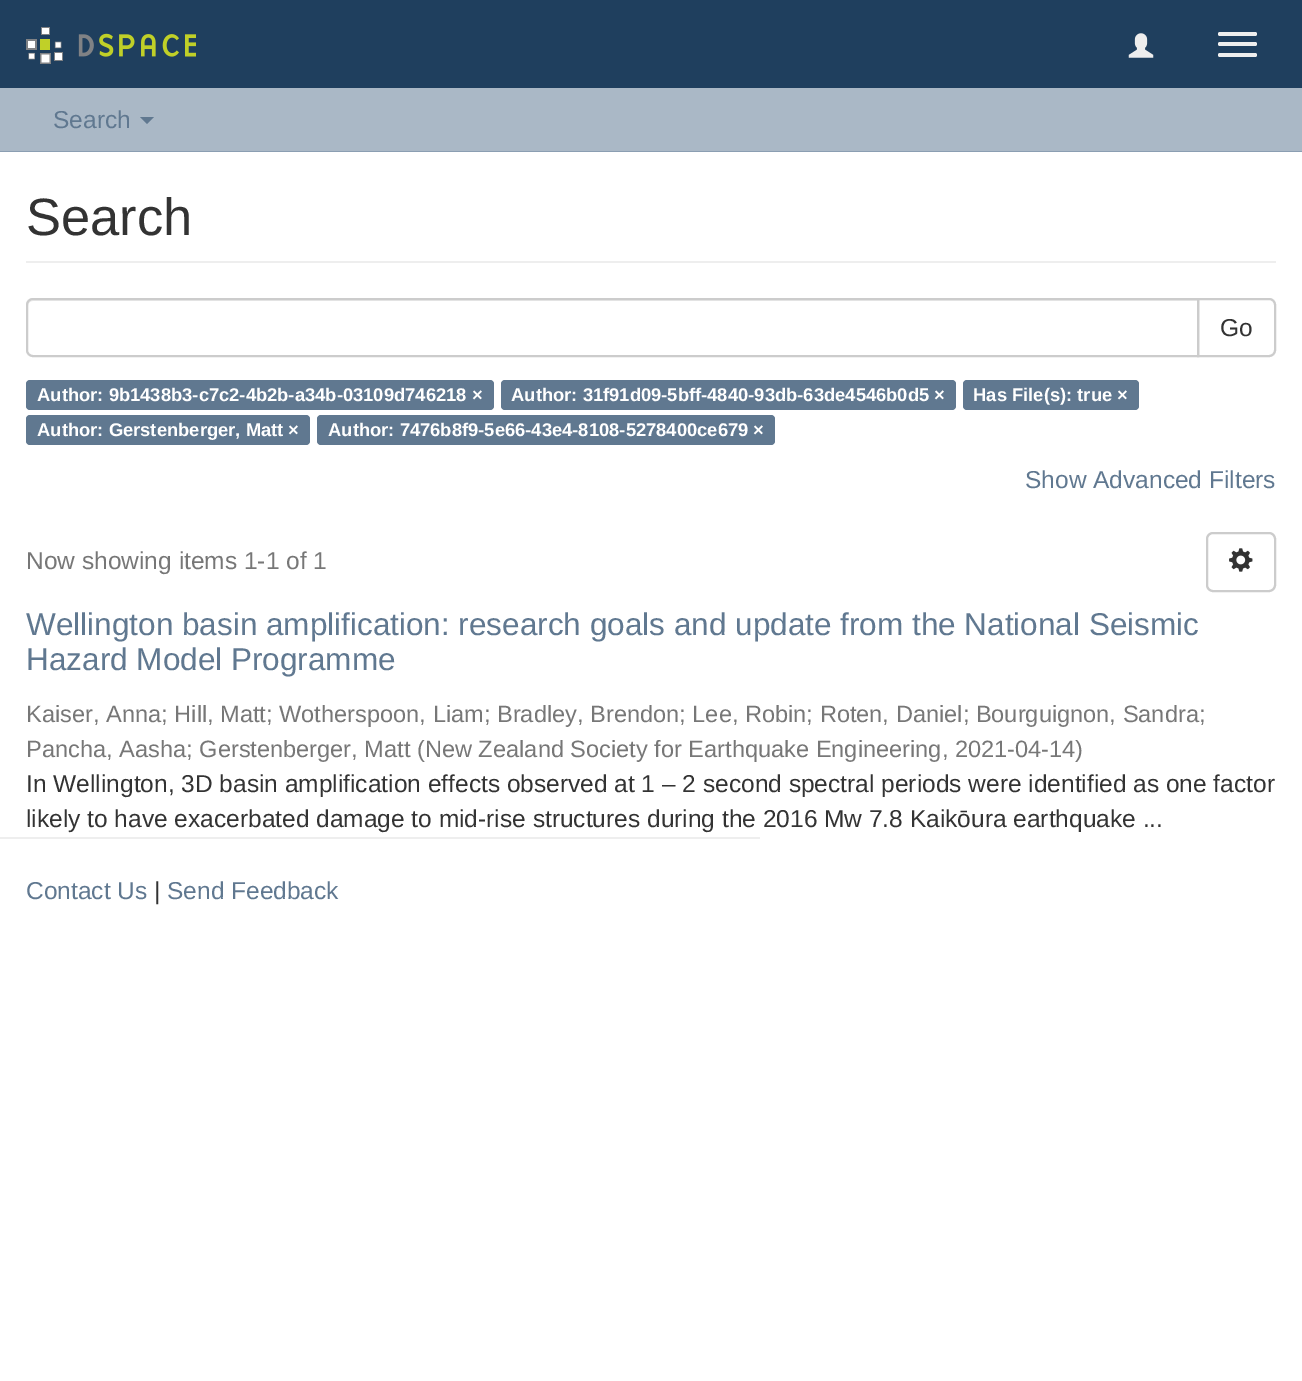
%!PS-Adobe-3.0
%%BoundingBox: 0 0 1302 1381
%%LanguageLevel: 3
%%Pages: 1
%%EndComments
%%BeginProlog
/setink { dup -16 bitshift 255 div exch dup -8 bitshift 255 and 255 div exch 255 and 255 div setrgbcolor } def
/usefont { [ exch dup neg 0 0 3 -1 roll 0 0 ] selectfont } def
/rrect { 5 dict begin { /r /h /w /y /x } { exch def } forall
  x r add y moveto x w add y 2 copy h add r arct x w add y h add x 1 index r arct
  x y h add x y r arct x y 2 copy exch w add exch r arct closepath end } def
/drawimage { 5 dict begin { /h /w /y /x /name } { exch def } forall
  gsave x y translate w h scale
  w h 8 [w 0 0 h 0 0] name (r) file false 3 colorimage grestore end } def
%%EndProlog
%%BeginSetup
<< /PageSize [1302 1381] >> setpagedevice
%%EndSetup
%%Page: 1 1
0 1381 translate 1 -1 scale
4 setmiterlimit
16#FFFFFF setink
0 0 1302 1381 rectfill
16#1F3F5E setink
0 0 1302 88 rectfill
(img1.raw) 26 27 170 37 drawimage
(img2.raw) 1128 33 26 25 drawimage
16#EEEEEE setink
1218 32 39 4 2 rrect fill
1218 42 39 4 2 rrect fill
1218 53 39 4 2 rrect fill
16#AAB8C6 setink
0 88 1302 63 rectfill
16#8B9EB2 setink
0 151 1302 1 rectfill
/LiberationSans-Regular 24.5 usefont
16#607890 setink
53 128 moveto (Search) show
140 117 moveto 154 117 lineto 147 124 lineto closepath fill
16#EEEEEE setink
26 261 1250 2 rectfill
/LiberationSans-Regular 52.5 usefont
16#333333 setink
26 235 moveto (Search) show
16#CCCCCC setink
2 setlinewidth
1198 299 moveto 1269 299 lineto 1272.5 299 1275 301.5 1275 305 curveto 1275 350 lineto 1275 353.5 1272.5 356 1269 356 curveto 1198 356 lineto closepath stroke
16#FFFFFF setink
33 298 moveto 1199 298 lineto 1199 357 lineto 33 357 lineto 29 357 26 354 26 350 curveto 26 305 lineto 26 301 29 298 33 298 curveto closepath fill
16#ECECEC setink
33 301 moveto 1197 301 lineto 1197 299 lineto 33 299 lineto 30 299 28 301 28 304 curveto 28 306 lineto 28 303 30 301 33 301 curveto closepath fill
16#CCCCCC setink
33 299 moveto 1198 299 lineto 1198 356 lineto 33 356 lineto 29.5 356 27 353.5 27 350 curveto 27 305 lineto 27 301.5 29.5 299 33 299 curveto closepath stroke
/LiberationSans-Regular 24.5 usefont
16#333333 setink
1220 336 moveto (Go) show
16#607890 setink
26 380 468 30 4 rrect fill
/LiberationSans-Bold 18.4 usefont
16#FFFFFF setink
37 401 moveto (Author: 9b1438b3-c7c2-4b2b-a34b-03109d746218 ×) show
16#607890 setink
501 380 455 30 4 rrect fill
16#FFFFFF setink
511 401 moveto (Author: 31f91d09-5bff-4840-93db-63de4546b0d5 ×) show
16#607890 setink
963 380 176 30 4 rrect fill
16#FFFFFF setink
973 401 moveto (Has File\(s\): true ×) show
16#607890 setink
26 415 284 30 4 rrect fill
16#FFFFFF setink
37 436 moveto (Author: Gerstenberger, Matt ×) show
16#607890 setink
317 415 458 30 4 rrect fill
16#FFFFFF setink
328 436 moveto (Author: 7476b8f9-5e66-43e4-8108-5278400ce679 ×) show
/LiberationSans-Regular 24.5 usefont
16#607890 setink
1025 488 moveto (Show Advanced Filters) show
16#777777 setink
26 569 moveto (Now showing items 1-1 of 1) show
16#CCCCCC setink
1207 533 68 58 6 rrect stroke
(img3.raw) 1229 548 24 24 drawimage
/LiberationSans-Regular 31.5 usefont
16#607890 setink
26 635 moveto (Wellington basin amplification: research goals and update from the National Seismic) show
26 670 moveto (Hazard Model Programme) show
/LiberationSans-Regular 23.6 usefont
16#777777 setink
26 722 moveto (Kaiser, Anna; Hill, Matt; Wotherspoon, Liam; Bradley, Brendon; Lee, Robin; Roten, Daniel; Bourguignon, Sandra;) show
26 757 moveto (Pancha, Aasha; Gerstenberger, Matt \(New Zealand Society for Earthquake Engineering, 2021-04-14\)) show
/LiberationSans-Regular 24.5 usefont
16#333333 setink
26 792 moveto (In Wellington, 3D basin amplification effects observed at 1 – 2 second spectral periods were identified as one factor) show
26 827 moveto (likely to have exacerbated damage to mid-rise structures during the 2016 Mw 7.8 Kaikōura earthquake ...) show
16#EEEEEE setink
0 837 760 2 rectfill
16#607890 setink
26 899 moveto (Contact Us) show
16#333333 setink
154 899 moveto (|) show
16#607890 setink
167 899 moveto (Send Feedback) show
showpage
%%EOF
